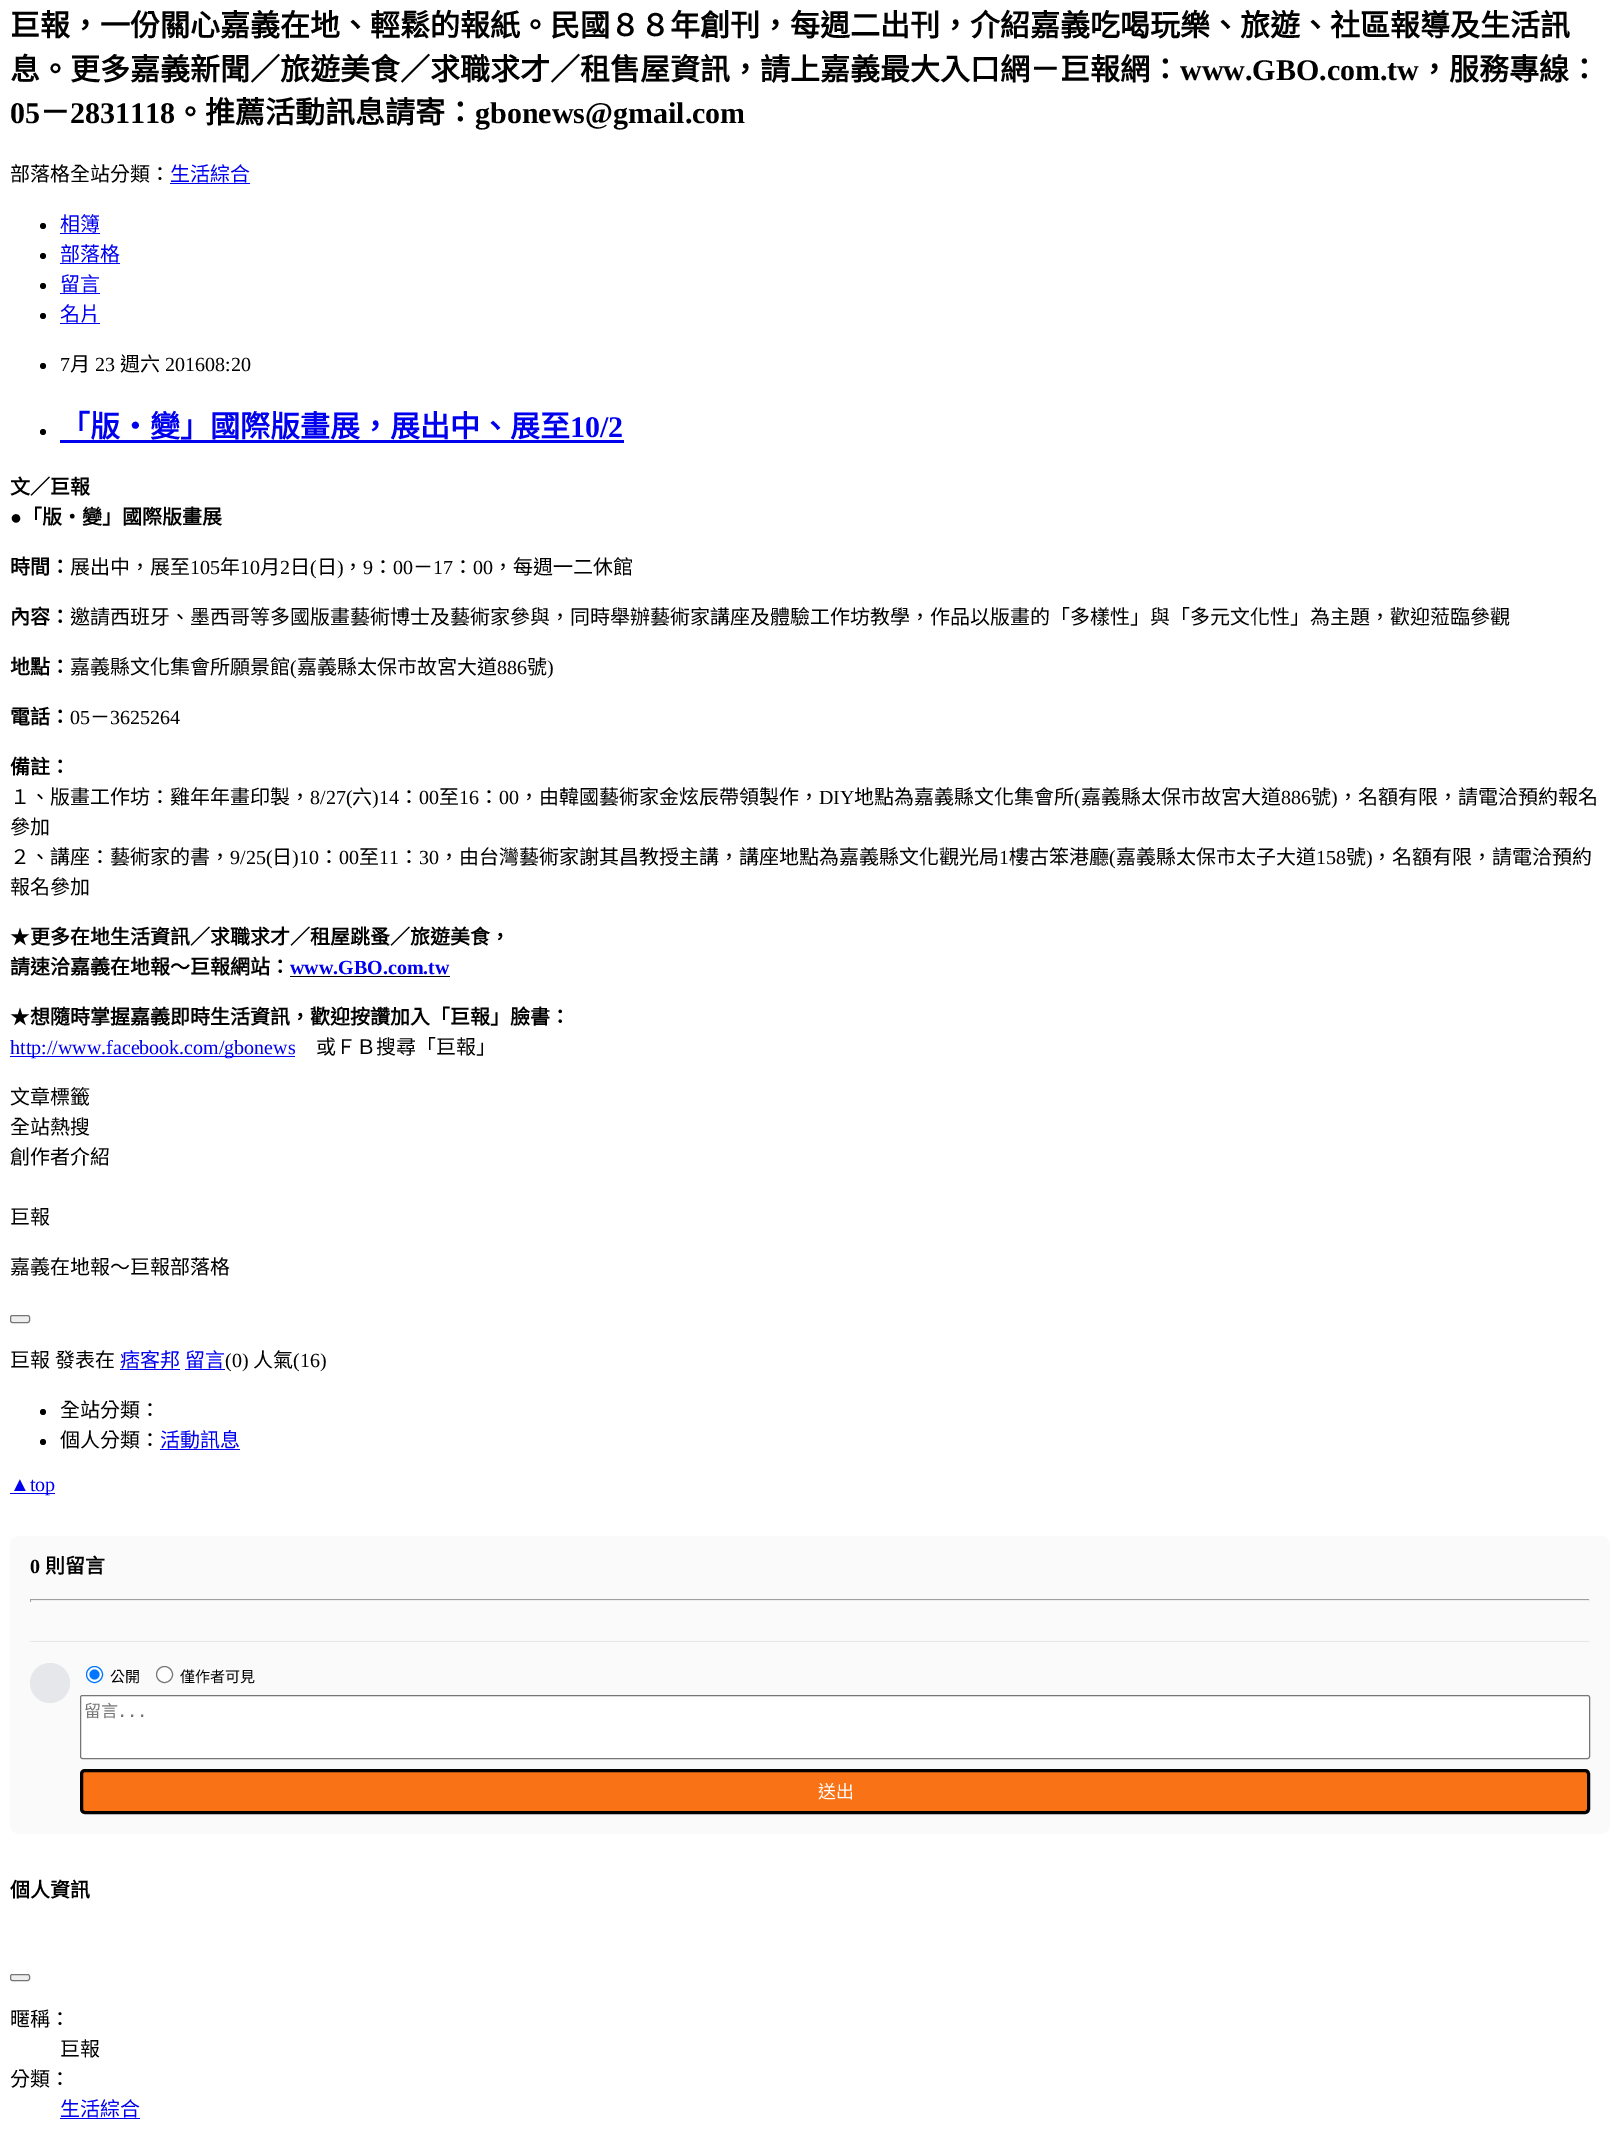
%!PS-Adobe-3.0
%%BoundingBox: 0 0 1619 2140
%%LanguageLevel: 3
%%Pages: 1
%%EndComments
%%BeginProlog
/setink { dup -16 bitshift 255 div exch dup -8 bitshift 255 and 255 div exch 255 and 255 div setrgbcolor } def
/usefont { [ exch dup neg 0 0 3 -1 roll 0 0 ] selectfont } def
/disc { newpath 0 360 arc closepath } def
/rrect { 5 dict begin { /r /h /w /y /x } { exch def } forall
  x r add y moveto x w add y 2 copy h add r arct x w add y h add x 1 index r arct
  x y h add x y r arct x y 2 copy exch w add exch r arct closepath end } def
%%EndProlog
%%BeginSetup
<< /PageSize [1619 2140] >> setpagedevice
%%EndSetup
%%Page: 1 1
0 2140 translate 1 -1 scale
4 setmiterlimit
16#FFFFFF setink
0 0 1619 2140 rectfill
/NotoSansCJKTC-Bold 30 usefont
16#000000 setink
10 36 moveto (巨報，一份關心嘉義在地、輕鬆的報紙。民國８８年創刊，每週二出刊，介紹嘉義吃喝玩樂、旅遊、社區報導及生活訊) show
10 80 moveto (息。更多嘉義新聞／旅遊美食／求職求才／租售屋資訊，請上嘉義最大入口網－巨報網：) show
/LiberationSerif-Bold 30 usefont
1180 80 moveto (www.GBO.com.tw) show
/NotoSansCJKTC-Bold 30 usefont
1419 80 moveto (，服務專線：) show
/LiberationSerif-Bold 30 usefont
10 123 moveto (05) show
/NotoSansCJKTC-Bold 30 usefont
40 123 moveto (－) show
/LiberationSerif-Bold 30 usefont
70 123 moveto (2831118) show
/NotoSansCJKTC-Bold 30 usefont
175 123 moveto (。推薦活動訊息請寄：) show
/LiberationSerif-Bold 30 usefont
475 123 moveto (gbonews@gmail.com) show
/NotoSansCJKTC-Regular 20 usefont
10 181 moveto (部落格全站分類：) show
16#0000EE setink
170 181 moveto (生活綜合) show
170 183 80 1 rectfill
16#000000 setink
43 226 3 disc fill
16#0000EE setink
60 231 moveto (相簿) show
60 233 40 1 rectfill
16#000000 setink
43 256 3 disc fill
16#0000EE setink
60 261 moveto (部落格) show
60 263 60 1 rectfill
16#000000 setink
43 286 3 disc fill
16#0000EE setink
60 291 moveto (留言) show
60 293 40 1 rectfill
16#000000 setink
43 316 3 disc fill
16#0000EE setink
60 321 moveto (名片) show
60 323 40 1 rectfill
16#000000 setink
43 366 3 disc fill
/LiberationSerif-Regular 20 usefont
60 371 moveto (7) show
/NotoSansCJKTC-Regular 20 usefont
70 371 moveto (月) show
/LiberationSerif-Regular 20 usefont
95 371 moveto (23) show
/NotoSansCJKTC-Regular 20 usefont
120 371 moveto (週六) show
/LiberationSerif-Regular 20 usefont
165 371 moveto (201608:20) show
43 432 3 disc fill
/NotoSansCJKTC-Bold 30 usefont
16#0000EE setink
60 437 moveto (「版‧變」國際版畫展，展出中、展至) show
/LiberationSerif-Bold 30 usefont
570 437 moveto (10/2) show
60 440 564 3 rectfill
/NotoSansCJKTC-Bold 20 usefont
16#000000 setink
10 494 moveto (文／巨報) show
/LiberationSerif-Bold 20 usefont
10 524 moveto (●) show
/NotoSansCJKTC-Bold 20 usefont
22 524 moveto (「版‧變」國際版畫展) show
10 574 moveto (時間：) show
/NotoSansCJKTC-Regular 20 usefont
70 574 moveto (展出中，展至) show
/LiberationSerif-Regular 20 usefont
190 574 moveto (105) show
/NotoSansCJKTC-Regular 20 usefont
220 574 moveto (年) show
/LiberationSerif-Regular 20 usefont
240 574 moveto (10) show
/NotoSansCJKTC-Regular 20 usefont
260 574 moveto (月) show
/LiberationSerif-Regular 20 usefont
280 574 moveto (2) show
/NotoSansCJKTC-Regular 20 usefont
290 574 moveto (日) show
/LiberationSerif-Regular 20 usefont
310 574 moveto (\() show
/NotoSansCJKTC-Regular 20 usefont
317 574 moveto (日) show
/LiberationSerif-Regular 20 usefont
337 574 moveto (\)) show
/NotoSansCJKTC-Regular 20 usefont
343 574 moveto (，) show
/LiberationSerif-Regular 20 usefont
363 574 moveto (9) show
/NotoSansCJKTC-Regular 20 usefont
373 574 moveto (：) show
/LiberationSerif-Regular 20 usefont
393 574 moveto (00) show
/NotoSansCJKTC-Regular 20 usefont
413 574 moveto (－) show
/LiberationSerif-Regular 20 usefont
433 574 moveto (17) show
/NotoSansCJKTC-Regular 20 usefont
453 574 moveto (：) show
/LiberationSerif-Regular 20 usefont
473 574 moveto (00) show
/NotoSansCJKTC-Regular 20 usefont
493 574 moveto (，每週一二休館) show
/NotoSansCJKTC-Bold 20 usefont
10 624 moveto (內容：) show
/NotoSansCJKTC-Regular 20 usefont
70 624 moveto (邀請西班牙、墨西哥等多國版畫藝術博士及藝術家參與，同時舉辦藝術家講座及體驗工作坊教學，作品以版畫的「多樣性」與「多元文化性」為主題，歡迎蒞臨參觀) show
/NotoSansCJKTC-Bold 20 usefont
10 674 moveto (地點：) show
/NotoSansCJKTC-Regular 20 usefont
70 674 moveto (嘉義縣文化集會所願景館) show
/LiberationSerif-Regular 20 usefont
290 674 moveto (\() show
/NotoSansCJKTC-Regular 20 usefont
297 674 moveto (嘉義縣太保市故宮大道) show
/LiberationSerif-Regular 20 usefont
497 674 moveto (886) show
/NotoSansCJKTC-Regular 20 usefont
527 674 moveto (號) show
/LiberationSerif-Regular 20 usefont
547 674 moveto (\)) show
/NotoSansCJKTC-Bold 20 usefont
10 724 moveto (電話：) show
/LiberationSerif-Regular 20 usefont
70 724 moveto (05) show
/NotoSansCJKTC-Regular 20 usefont
90 724 moveto (－) show
/LiberationSerif-Regular 20 usefont
110 724 moveto (3625264) show
/NotoSansCJKTC-Bold 20 usefont
10 774 moveto (備註：) show
/NotoSansCJKTC-Regular 20 usefont
10 804 moveto (１、版畫工作坊：雞年年畫印製，) show
/LiberationSerif-Regular 20 usefont
310 804 moveto (8/27\() show
/NotoSansCJKTC-Regular 20 usefont
352 804 moveto (六) show
/LiberationSerif-Regular 20 usefont
372 804 moveto (\)14) show
/NotoSansCJKTC-Regular 20 usefont
399 804 moveto (：) show
/LiberationSerif-Regular 20 usefont
419 804 moveto (00) show
/NotoSansCJKTC-Regular 20 usefont
439 804 moveto (至) show
/LiberationSerif-Regular 20 usefont
459 804 moveto (16) show
/NotoSansCJKTC-Regular 20 usefont
479 804 moveto (：) show
/LiberationSerif-Regular 20 usefont
499 804 moveto (00) show
/NotoSansCJKTC-Regular 20 usefont
519 804 moveto (，由韓國藝術家金炫辰帶領製作，) show
/LiberationSerif-Regular 20 usefont
819 804 moveto (DIY) show
/NotoSansCJKTC-Regular 20 usefont
854 804 moveto (地點為嘉義縣文化集會所) show
/LiberationSerif-Regular 20 usefont
1074 804 moveto (\() show
/NotoSansCJKTC-Regular 20 usefont
1081 804 moveto (嘉義縣太保市故宮大道) show
/LiberationSerif-Regular 20 usefont
1281 804 moveto (886) show
/NotoSansCJKTC-Regular 20 usefont
1311 804 moveto (號) show
/LiberationSerif-Regular 20 usefont
1331 804 moveto (\)) show
/NotoSansCJKTC-Regular 20 usefont
[
    [(，名額有限，請電洽預約報名) 1338 804]
    [(參加) 10 834]
    [(２、講座：藝術家的書，) 10 864]
] { aload pop moveto show } forall
/LiberationSerif-Regular 20 usefont
230 864 moveto (9/25\() show
/NotoSansCJKTC-Regular 20 usefont
272 864 moveto (日) show
/LiberationSerif-Regular 20 usefont
292 864 moveto (\)10) show
/NotoSansCJKTC-Regular 20 usefont
319 864 moveto (：) show
/LiberationSerif-Regular 20 usefont
339 864 moveto (00) show
/NotoSansCJKTC-Regular 20 usefont
359 864 moveto (至) show
/LiberationSerif-Regular 20 usefont
379 864 moveto (11) show
/NotoSansCJKTC-Regular 20 usefont
399 864 moveto (：) show
/LiberationSerif-Regular 20 usefont
419 864 moveto (30) show
/NotoSansCJKTC-Regular 20 usefont
439 864 moveto (，由台灣藝術家謝其昌教授主講，講座地點為嘉義縣文化觀光局) show
/LiberationSerif-Regular 20 usefont
999 864 moveto (1) show
/NotoSansCJKTC-Regular 20 usefont
1009 864 moveto (樓古笨港廳) show
/LiberationSerif-Regular 20 usefont
1109 864 moveto (\() show
/NotoSansCJKTC-Regular 20 usefont
1116 864 moveto (嘉義縣太保市太子大道) show
/LiberationSerif-Regular 20 usefont
1316 864 moveto (158) show
/NotoSansCJKTC-Regular 20 usefont
1346 864 moveto (號) show
/LiberationSerif-Regular 20 usefont
1366 864 moveto (\)) show
/NotoSansCJKTC-Regular 20 usefont
[
    [(，名額有限，請電洽預約) 1372 864]
    [(報名參加) 10 894]
    [(★) 10 944]
] { aload pop moveto show } forall
/NotoSansCJKTC-Bold 20 usefont
30 944 moveto (更多在地生活資訊／求職求才／租屋跳蚤／旅遊美食，) show
10 974 moveto (請速洽嘉義在地報～巨報網站：) show
/LiberationSerif-Bold 20 usefont
16#0000EE setink
290 974 moveto (www.GBO.com.tw) show
16#000000 setink
290 976 160 1 rectfill
/NotoSansCJKTC-Regular 20 usefont
10 1024 moveto (★) show
/NotoSansCJKTC-Bold 20 usefont
30 1024 moveto (想隨時掌握嘉義即時生活資訊，歡迎按讚加入「巨報」臉書：) show
16#0000EE setink
10 1056 285 1 rectfill
/LiberationSerif-Regular 20 usefont
10 1054 moveto (http://www.facebook.com/gbonews) show
/NotoSansCJKTC-Regular 20 usefont
16#000000 setink
[
    [(或ＦＢ搜尋「巨報」) 316 1054]
    [(文章標籤) 10 1104]
    [(全站熱搜) 10 1134]
    [(創作者介紹) 10 1164]
    [(巨報) 10 1224]
    [(嘉義在地報～巨報部落格) 10 1274]
] { aload pop moveto show } forall
16#EFEFEF setink
10.5 1315.5 19 7 2 rrect gsave fill grestore
16#767676 setink
stroke
16#000000 setink
10 1367 moveto (巨報) show
55 1367 moveto (發表在) show
16#0000EE setink
120 1367 moveto (痞客邦) show
120 1369 60 1 rectfill
185 1367 moveto (留言) show
185 1369 40 1 rectfill
/LiberationSerif-Regular 20 usefont
16#000000 setink
225 1367 moveto (\(0\)) show
/NotoSansCJKTC-Regular 20 usefont
253 1367 moveto (人氣) show
/LiberationSerif-Regular 20 usefont
293 1367 moveto (\(16\)) show
43 1412 3 disc fill
/NotoSansCJKTC-Regular 20 usefont
60 1417 moveto (全站分類：) show
43 1442 3 disc fill
60 1447 moveto (個人分類：) show
16#0000EE setink
160 1447 moveto (活動訊息) show
160 1449 80 1 rectfill
10 1493 45 1 rectfill
/LiberationSerif-Regular 20 usefont
10 1491 moveto (▲top) show
16#FAFAFA setink
10 1536 1600 298 10 rrect fill
/LiberationSerif-Bold 20 usefont
16#000000 setink
30 1573 moveto (0) show
/NotoSansCJKTC-Bold 20 usefont
45 1573 moveto (則留言) show
[
    [30 1599 1560 1 16#9F9F9F]
    [1589 1599 1 3 16#EEEEEE]
    [30 1600 1560 1 16#EEEEEE]
    [30 1599 1 3 16#9F9F9F]
    [30 1641 1560 1 16#E5E7EB]
] { aload pop setink rectfill } forall
50 1683 20 disc fill
16#FFFFFF setink
94.5 1674.5 8 disc gsave fill grestore
16#0075FF setink
stroke
94.5 1674.5 5 disc fill
/NotoSansCJKTC-Regular 15 usefont
16#000000 setink
110 1682 moveto (公開) show
16#FFFFFF setink
164.5 1674.5 8 disc gsave fill grestore
16#767676 setink
stroke
16#000000 setink
180 1682 moveto (僅作者可見) show
16#FFFFFF setink
80.5 1695.5 1509 63 2 rrect gsave fill grestore
16#767676 setink
stroke
/NotoSansCJKTC-Regular 17 usefont
16#757575 setink
84 1717 moveto (留言) show
/DejaVuSansMono-Regular 17 usefont
117 1717 moveto (...) show
16#F97316 setink
81.5 1770.5 1507 42 3.5 rrect gsave fill grestore
16#000000 setink
3 setlinewidth
stroke
/NotoSansCJKTC-Regular 18 usefont
16#FFFFFF setink
818 1798 moveto (送出) show
/NotoSansCJKTC-Bold 20 usefont
16#000000 setink
10 1897 moveto (個人資訊) show
16#EFEFEF setink
10.5 1974.5 19 6 2 rrect gsave fill grestore
16#767676 setink
1 setlinewidth
stroke
/NotoSansCJKTC-Regular 20 usefont
16#000000 setink
[
    [(暱稱：) 10 2026]
    [(巨報) 60 2056]
    [(分類：) 10 2086]
] { aload pop moveto show } forall
16#0000EE setink
60 2116 moveto (生活綜合) show
60 2118 80 1 rectfill
showpage
%%EOF
